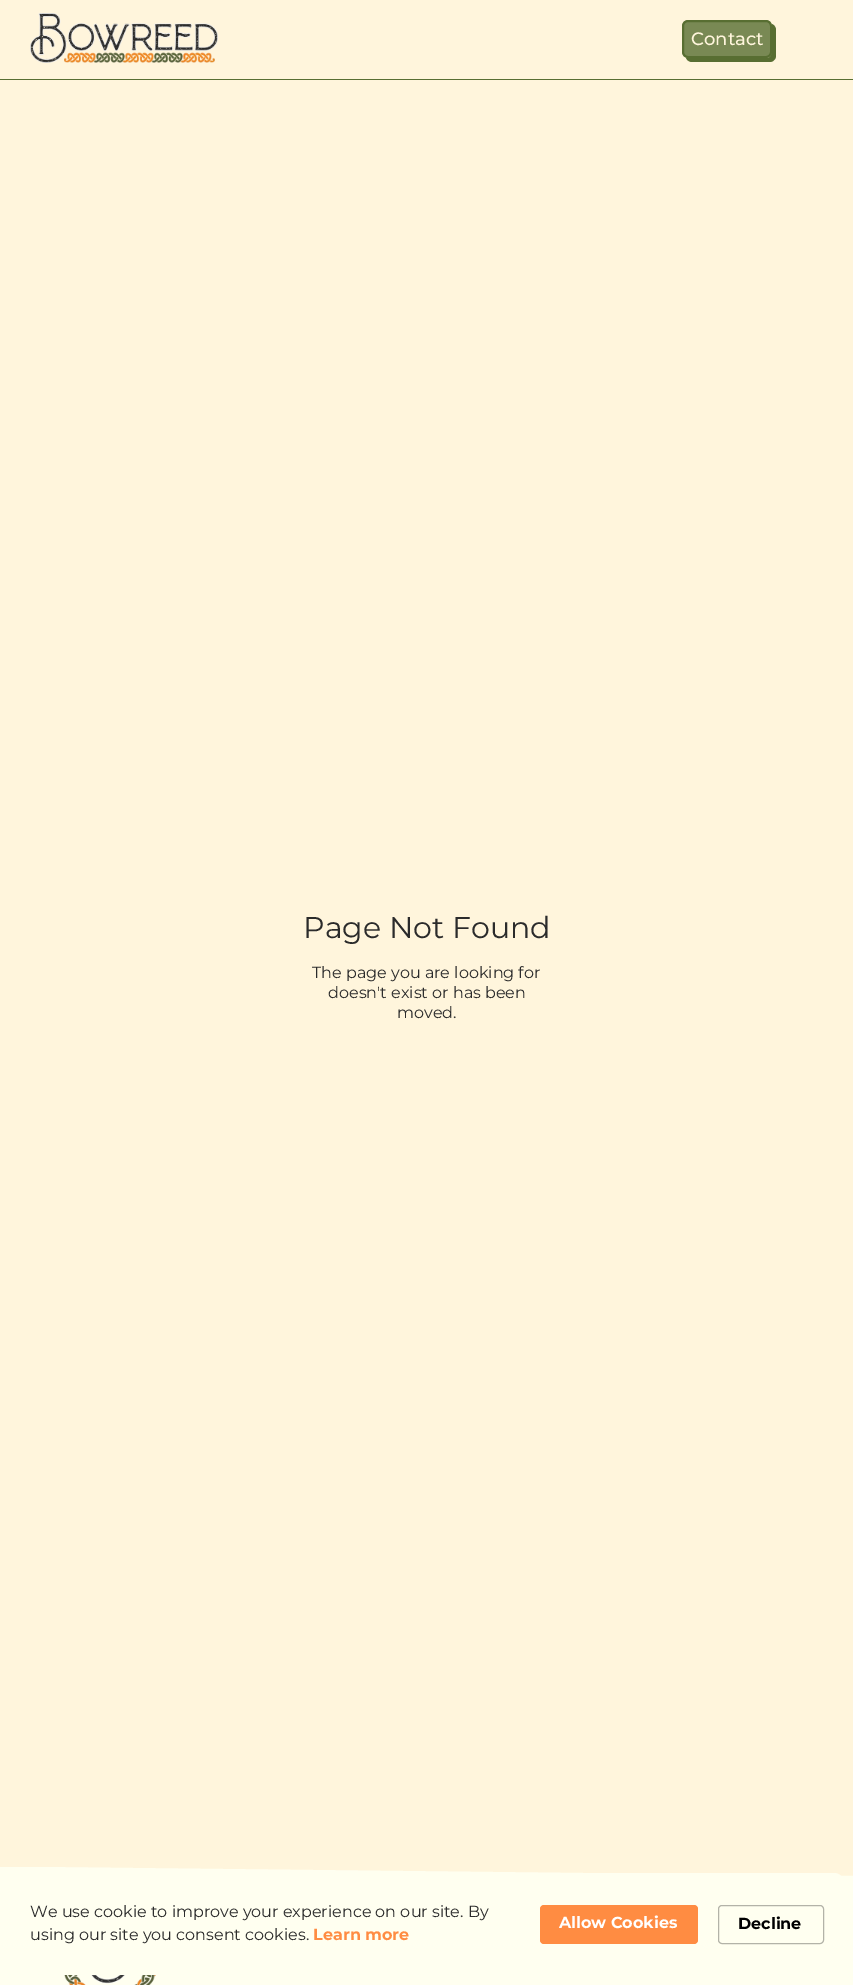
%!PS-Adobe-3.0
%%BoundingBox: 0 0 853 1985
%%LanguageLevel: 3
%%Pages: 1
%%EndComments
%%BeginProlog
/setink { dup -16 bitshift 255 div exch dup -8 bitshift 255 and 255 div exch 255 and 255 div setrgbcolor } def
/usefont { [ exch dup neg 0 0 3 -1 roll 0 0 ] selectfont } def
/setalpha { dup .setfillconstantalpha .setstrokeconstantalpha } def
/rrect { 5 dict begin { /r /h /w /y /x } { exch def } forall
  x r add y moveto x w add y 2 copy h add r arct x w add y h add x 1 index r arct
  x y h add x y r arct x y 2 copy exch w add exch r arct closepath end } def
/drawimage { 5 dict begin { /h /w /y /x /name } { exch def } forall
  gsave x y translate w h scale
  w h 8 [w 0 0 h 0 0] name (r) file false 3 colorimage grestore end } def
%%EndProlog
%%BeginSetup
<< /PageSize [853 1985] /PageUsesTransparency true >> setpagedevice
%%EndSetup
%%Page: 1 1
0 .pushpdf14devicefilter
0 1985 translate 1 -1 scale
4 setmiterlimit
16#FFF5DC setink
0 0 853 1985 rectfill
16#586E32 setink
0 79 853 1 rectfill
(img1.raw) 30 13 188 50 drawimage
686 58 moveto 687 60 689 62 692 62 curveto 770 62 lineto 773 62 776 59 776 56 curveto 776 30 lineto 776 27 774 25 772 24 curveto 772 43 lineto 772 61 771 58 753 58 curveto closepath fill
0.8 setalpha
683 21 88 36 5 rrect fill
1 setalpha
2 setlinewidth
683 21 88 36 5 rrect stroke
/Montserrat-Medium 18 usefont
16#FFF5DC setink
691 45 moveto (Contact) show
/Montserrat-Regular 30 usefont
16#2B2B2B setink
303 938 moveto (Page Not Found) show
/Montserrat-Regular 16 usefont
[
    [(The page you are looking for) 312 978]
    [(doesn't exist or has been) 328 998]
    [(moved.) 397 1018]
] { aload pop moveto show } forall
16#FFFFF0 setink
0 1867 moveto 0 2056 lineto 853 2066 lineto 853 1876 lineto 43 1867 lineto closepath fill
(img2.raw) 64 1975 92 10 drawimage
11 1873 833 102 10 rrect fill
16#2B2B2B setink
30 1917 moveto (We use cookie to improve your experience on our site. By) show
30 1940 moveto (using our site you consent cookies.) show
/Montserrat-Bold 16 usefont
16#FF8C42 setink
313 1940 moveto (Learn more) show
540 1905 158 39 4 rrect fill
16#FFFFFF setink
559 1928 moveto (Allow Cookies) show
16#B3B3A8 setink
1 setlinewidth
718.5 1905.5 105 38 3.5 rrect stroke
16#000000 setink
738 1929 moveto (Decline) show
.poppdf14devicefilter showpage
%%EOF
